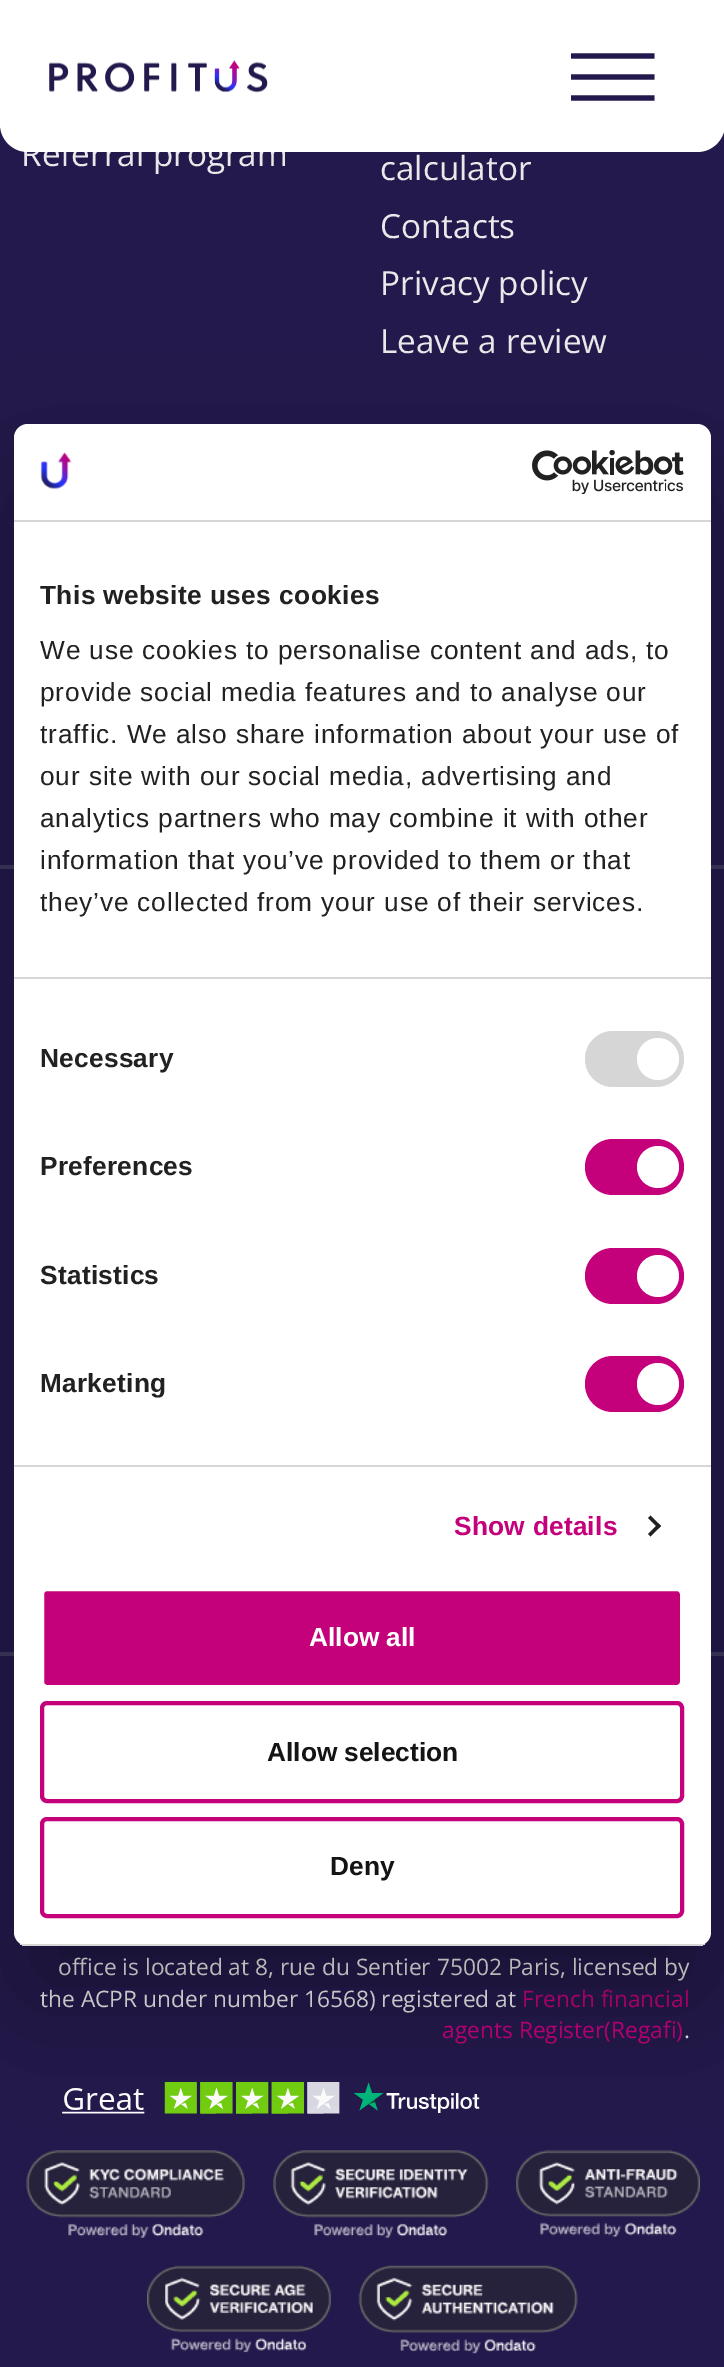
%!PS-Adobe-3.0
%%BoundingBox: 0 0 724 2367
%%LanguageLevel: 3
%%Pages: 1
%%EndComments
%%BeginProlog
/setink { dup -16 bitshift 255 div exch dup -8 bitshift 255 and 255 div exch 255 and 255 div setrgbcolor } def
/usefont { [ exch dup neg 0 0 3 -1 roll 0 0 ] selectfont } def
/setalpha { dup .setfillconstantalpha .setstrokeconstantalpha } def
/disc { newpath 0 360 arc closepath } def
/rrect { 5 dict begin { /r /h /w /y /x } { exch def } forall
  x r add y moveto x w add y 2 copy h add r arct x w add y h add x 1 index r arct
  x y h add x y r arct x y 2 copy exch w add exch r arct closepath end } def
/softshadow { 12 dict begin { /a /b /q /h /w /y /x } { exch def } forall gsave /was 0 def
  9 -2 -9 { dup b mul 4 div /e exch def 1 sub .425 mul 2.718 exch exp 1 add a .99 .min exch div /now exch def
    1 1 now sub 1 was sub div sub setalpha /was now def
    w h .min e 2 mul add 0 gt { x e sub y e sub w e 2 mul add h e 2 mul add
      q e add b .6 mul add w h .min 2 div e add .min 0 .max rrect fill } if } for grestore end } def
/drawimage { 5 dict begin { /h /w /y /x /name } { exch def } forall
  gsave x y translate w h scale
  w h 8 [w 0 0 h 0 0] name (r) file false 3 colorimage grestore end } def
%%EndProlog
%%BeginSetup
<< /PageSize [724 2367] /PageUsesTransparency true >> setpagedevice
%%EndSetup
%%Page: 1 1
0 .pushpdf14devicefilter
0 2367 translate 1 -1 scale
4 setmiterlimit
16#23194C setink
0 0 724 2367 rectfill
/OpenSans-Regular 33.25 usefont
16#E9E9E9 setink
21 166 moveto (Referral program) show
16#FFFFFF setink
0 0 moveto 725 0 lineto 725 124 lineto 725 139.5 712.5 152 697 152 curveto 28 152 lineto 12.5 152 0 139.5 0 124 curveto closepath fill
(img1.raw) 49 60 219 33 drawimage
gsave
571 53 84 49 rectclip
16#23194C setink
5.2 setlinewidth
570.5 56 moveto 654.5 56 lineto stroke
570.5 77 moveto 654.5 77 lineto stroke
570.5 98 moveto 654.5 98 lineto stroke
grestore
16#E9E9E9 setink
[
    [(calculator) 380 180]
    [(Contacts) 380 238]
    [(Privacy policy) 380 295]
    [(Leave a review) 380 353]
] { aload pop moveto show } forall
16#3F385E setink
0 865 724 4 rectfill
0 1652 724 4 rectfill
/OpenSans-Regular 22.75 usefont
16#E9E9E9 setink
58 1975 moveto (office is located at 8, rue du Sentier 75002 Paris, licensed by) show
40 2007 moveto (the ACPR under number 16568\) registered at) show
16#C4007A setink
522 2007 moveto (French financial) show
442 2038 moveto (agents Register\(Regafi\)) show
16#E9E9E9 setink
684 2038 moveto (.) show
(img2.raw) 62 2082 418 32 drawimage
(img3.raw) 26 2150 219 88 drawimage
(img4.raw) 273 2150 216 88 drawimage
(img5.raw) 516 2150 184 87 drawimage
(img6.raw) 147 2265 184 88 drawimage
(img7.raw) 358 2265 220 89 drawimage
16#000000 setink
14 480 697 1522 14 59.5 0.3 softshadow
16#FFFFFF setink
14 424 697 1522 14 rrect fill
16#D6D6D6 setink
14 520 697 2 rectfill
(img8.raw) 40 452 32 37 drawimage
(img9.raw) 532 450 152 44 drawimage
14 977 697 2 rectfill
/LiberationSans-Bold 26.25 usefont
16#212121 setink
40 604 moveto 0.4 0 (This website uses cookies) ashow
/LiberationSans-Regular 26.25 usefont
40 659 moveto 0.88 0 (We use cookies to personalise content and ads, to) ashow
40 701 moveto 0.88 0 (provide social media features and to analyse our) ashow
40 743 moveto 0.88 0 (traffic. We also share information about your use of) ashow
40 785 moveto 0.88 0 (our site with our social media, advertising and) ashow
40 827 moveto 0.88 0 (analytics partners who may combine it with other) ashow
40 869 moveto 0.88 0 (information that you’ve provided to them or that) ashow
40 911 moveto 0.88 0 (they’ve collected from your use of their services.) ashow
16#D6D6D6 setink
14 1465 697 2 rectfill
/LiberationSans-Bold 26.25 usefont
16#212121 setink
40 1067 moveto 0.25 0 (Necessary) ashow
16#D6D6D6 setink
585 1031 99 56 28 rrect fill
16#FFFFFF setink
658 1059 21 disc fill
16#212121 setink
40 1175 moveto 0.25 0 (Preferences) ashow
16#C4007A setink
585 1139 99 56 28 rrect fill
16#FFFFFF setink
658 1167 21 disc fill
16#212121 setink
40 1284 moveto 0.25 0 (Statistics) ashow
16#C4007A setink
585 1248 99 56 28 rrect fill
16#FFFFFF setink
658 1276 21 disc fill
16#212121 setink
40 1392 moveto 0.25 0 (Marketing) ashow
16#C4007A setink
585 1356 99 56 28 rrect fill
16#FFFFFF setink
658 1384 21 disc fill
16#C4007A setink
454 1535 moveto 0.25 0 (Show details) ashow
16#212121 setink
650.5 1515.5 moveto 661 1526 lineto 658.5 1528.5 lineto 648 1518 lineto closepath fill
658.5 1523.5 moveto 661 1526 lineto 650.5 1536.5 lineto 648 1534 lineto closepath fill
gsave
14 424 697 1522 14 rrect clip newpath
16#D6D6D6 setink
14 1944 697 2 rectfill
grestore
16#C4007A setink
42 1589 640 98 5 rrect gsave fill grestore
16#FFFFFF setink
4 setlinewidth
stroke
309 1646 moveto (Allow all) show
16#C4007A setink
42 1703 640 98 5 rrect stroke
16#141414 setink
267 1761 moveto (Allow selection) show
16#C4007A setink
42 1819 640 97 5 rrect stroke
16#141414 setink
330 1875 moveto (Deny) show
.poppdf14devicefilter showpage
%%EOF
